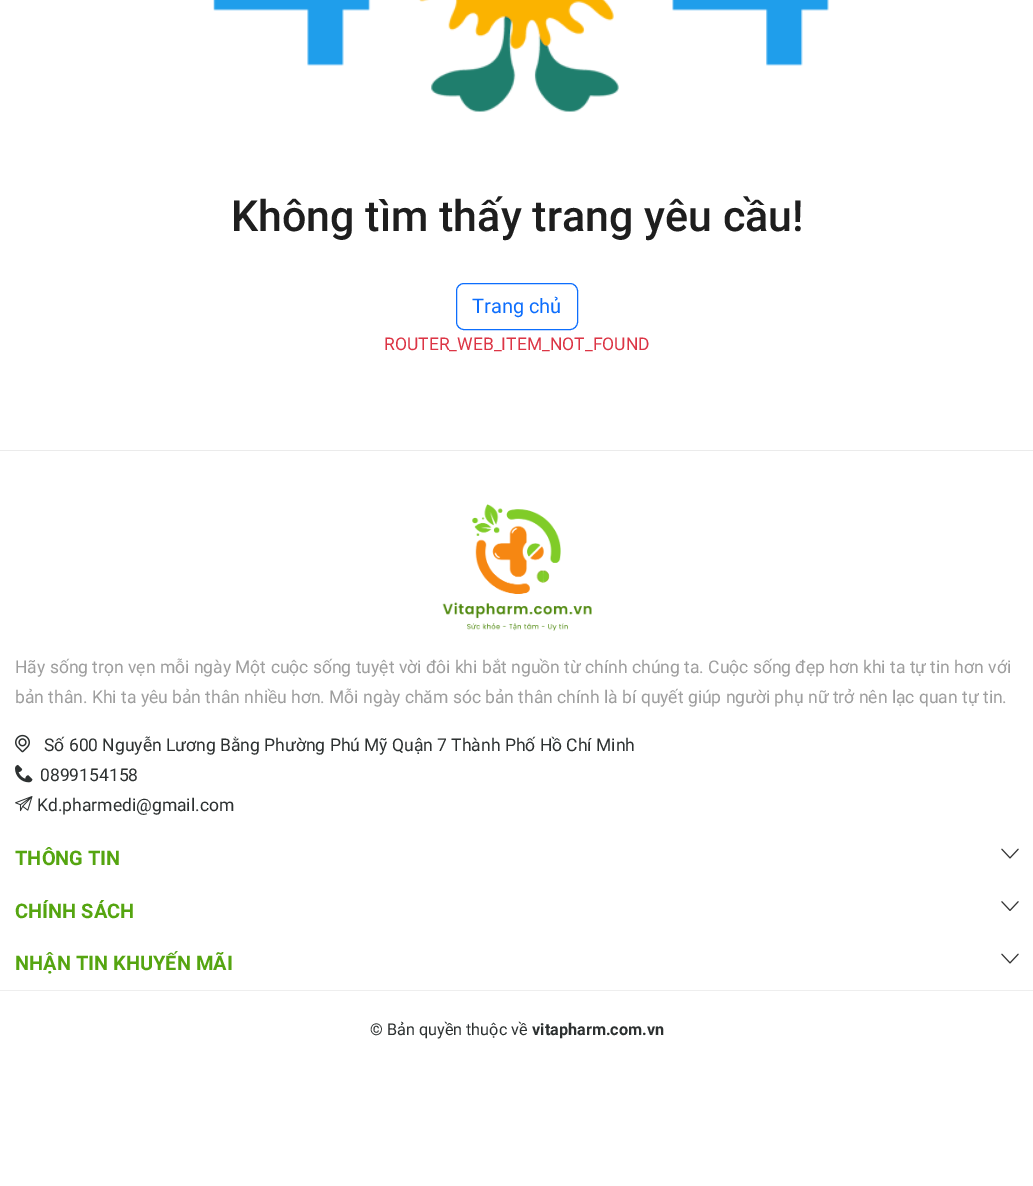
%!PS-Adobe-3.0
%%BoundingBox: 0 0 1033 1186
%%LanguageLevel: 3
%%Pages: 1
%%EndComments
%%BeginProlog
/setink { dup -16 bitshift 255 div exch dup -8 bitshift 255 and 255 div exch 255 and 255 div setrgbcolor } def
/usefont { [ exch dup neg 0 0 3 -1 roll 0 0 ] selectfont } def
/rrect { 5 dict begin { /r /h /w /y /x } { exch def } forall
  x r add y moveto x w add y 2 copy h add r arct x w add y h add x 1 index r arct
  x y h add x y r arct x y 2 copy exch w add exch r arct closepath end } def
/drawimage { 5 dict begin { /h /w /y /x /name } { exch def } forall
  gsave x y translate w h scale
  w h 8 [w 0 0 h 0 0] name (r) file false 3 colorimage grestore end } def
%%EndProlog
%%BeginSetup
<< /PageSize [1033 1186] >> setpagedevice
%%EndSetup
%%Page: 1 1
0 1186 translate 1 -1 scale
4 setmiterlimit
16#FFFFFF setink
0 0 1033 1186 rectfill
(img1.raw) 213 0 616 112 drawimage
/Roboto-Medium 43 usefont
16#1E1E1E setink
231 231 moveto (Không tìm thấy trang yêu cầu!) show
16#0D6EFD setink
456.5 283.5 121 46 7.5 rrect stroke
/Roboto-Regular 20 usefont
472 313 moveto (Trang chủ) show
/Roboto-Regular 17.5 usefont
16#DC3545 setink
384 350 moveto (ROUTER_WEB_ITEM_NOT_FOUND) show
16#EBEBEB setink
0 450 1033 1 rectfill
(img2.raw) 442 504 150 127 drawimage
16#9E9E9E setink
15 673 moveto (Hãy sống trọn vẹn mỗi ngày Một cuộc sống tuyệt vời đôi khi bắt nguồn từ chính chúng ta. Cuộc sống đẹp hơn khi ta tự tin hơn với) show
15 703 moveto (bản thân. Khi ta yêu bản thân nhiều hơn. Mỗi ngày chăm sóc bản thân chính là bí quyết giúp người phụ nữ trở nên lạc quan tự tin.) show
(img3.raw) 15 734 15 19 drawimage
16#2D3131 setink
44 751 moveto (Số 600 Nguyễn Lương Bằng Phường Phú Mỹ Quận 7 Thành Phố Hồ Chí Minh) show
(img4.raw) 15 764 18 19 drawimage
40 781 moveto (0899154158) show
(img5.raw) 15 796 18 16 drawimage
37 811 moveto (Kd.pharmedi@gmail.com) show
/Roboto-Bold 20 usefont
16#55A510 setink
15 865 moveto (THÔNG TIN) show
(img6.raw) 1001 848 18 11 drawimage
15 918 moveto (CHÍNH SÁCH) show
(img7.raw) 1001 901 18 10 drawimage
15 970 moveto (NHẬN TIN KHUYẾN MÃI) show
(img6.raw) 1001 953 18 11 drawimage
16#EEEEEE setink
0 990 1033 1 rectfill
/Roboto-Regular 16.25 usefont
16#2D3131 setink
370 1035 moveto (© Bản quyền thuộc về) show
/Roboto-Bold 16.25 usefont
532 1035 moveto (vitapharm.com.vn) show
showpage
%%EOF
